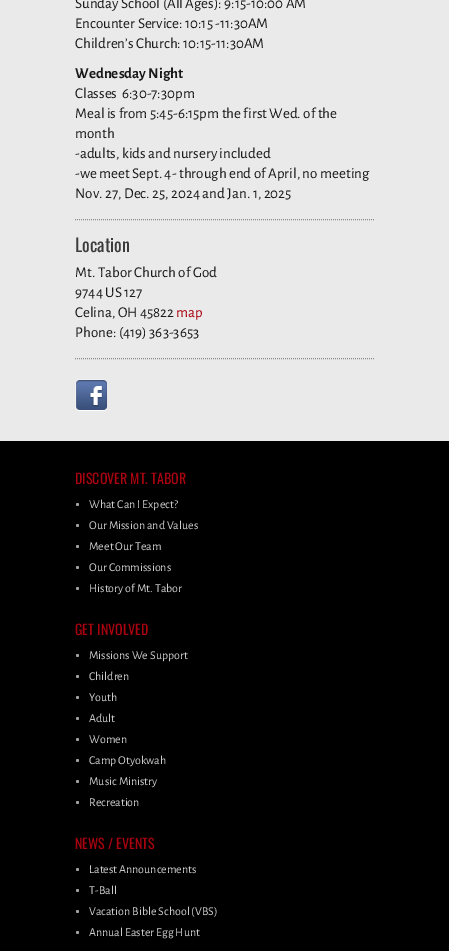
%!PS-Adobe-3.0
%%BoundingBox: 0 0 449 951
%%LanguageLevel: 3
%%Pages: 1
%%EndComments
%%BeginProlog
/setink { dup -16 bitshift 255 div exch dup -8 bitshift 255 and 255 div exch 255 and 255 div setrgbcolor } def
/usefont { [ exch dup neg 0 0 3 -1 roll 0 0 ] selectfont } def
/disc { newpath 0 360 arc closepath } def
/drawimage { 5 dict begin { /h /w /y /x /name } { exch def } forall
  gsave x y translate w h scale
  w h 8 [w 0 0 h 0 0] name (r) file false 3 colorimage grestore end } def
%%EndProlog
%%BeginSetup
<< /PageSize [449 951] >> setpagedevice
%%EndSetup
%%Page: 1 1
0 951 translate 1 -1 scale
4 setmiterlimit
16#EAEAEA setink
0 0 449 951 rectfill
/AlegreyaSans-Regular 15 usefont
16#191919 setink
[
    [(Sunday School \(All Ages\): 9:15-10:00 AM) 75 8]
    [(Encounter Service: 10:15 -11:30AM) 75 28]
    [(Children’s Church: 10:15-11:30AM) 75 48]
] { aload pop moveto show } forall
/AlegreyaSans-Bold 15 usefont
75 78 moveto (Wednesday Night) show
/AlegreyaSans-Regular 15 usefont
[
    [(Classes  6:30-7:30pm) 75 98]
    [(Meal is from 5:45-6:15pm the first Wed. of the) 75 118]
    [(month) 75 138]
    [(-adults, kids and nursery included) 75 158]
    [(-we meet Sept. 4- through end of April, no meeting) 75 178]
    [(Nov. 27, Dec. 25, 2024 and Jan. 1, 2025) 75 198]
] { aload pop moveto show } forall
16#8A8A8A setink
[1 1] 0 setdash
75 219.5 moveto 375 219.5 lineto stroke
/Oswald-Regular 18 usefont
16#3B3B3B setink
75 252 moveto (Location) show
/AlegreyaSans-Regular 15 usefont
16#191919 setink
[
    [(Mt. Tabor Church of God) 75 277]
    [(9744 US 127) 75 297]
    [(Celina, OH 45822) 75 317]
] { aload pop moveto show } forall
16#A90310 setink
176 317 moveto (map) show
16#191919 setink
75 337 moveto (Phone: \(419\) 363-3653) show
16#8A8A8A setink
75 358.5 moveto 375 358.5 lineto stroke
(img1.raw) 75 379 32 32 drawimage
16#000000 setink
0 441 449 510 rectfill
/Oswald-Regular 14 usefont
16#A90310 setink
75 484 moveto (DISCOVER MT. TABOR) show
16#A2A2A2 setink
77.5 504.5 1.5 disc fill
/AlegreyaSans-Regular 12 usefont
16#CCCCCC setink
89 508 moveto (What Can I Expect?) show
16#A2A2A2 setink
77.5 525.5 1.5 disc fill
16#CCCCCC setink
89 529 moveto (Our Mission and Values) show
16#A2A2A2 setink
77.5 546.5 1.5 disc fill
16#CCCCCC setink
89 550 moveto (Meet Our Team) show
16#A2A2A2 setink
77.5 567.5 1.5 disc fill
16#CCCCCC setink
89 571 moveto (Our Commissions) show
16#A2A2A2 setink
77.5 588.5 1.5 disc fill
16#CCCCCC setink
89 592 moveto (History of Mt. Tabor) show
/Oswald-Regular 14 usefont
16#A90310 setink
75 635 moveto (GET INVOLVED) show
16#A2A2A2 setink
77.5 655.5 1.5 disc fill
/AlegreyaSans-Regular 12 usefont
16#CCCCCC setink
89 659 moveto (Missions We Support) show
16#A2A2A2 setink
77.5 676.5 1.5 disc fill
16#CCCCCC setink
89 680 moveto (Children) show
16#A2A2A2 setink
77.5 697.5 1.5 disc fill
16#CCCCCC setink
89 701 moveto (Youth) show
16#A2A2A2 setink
77.5 718.5 1.5 disc fill
16#CCCCCC setink
89 722 moveto (Adult) show
16#A2A2A2 setink
77.5 739.5 1.5 disc fill
16#CCCCCC setink
89 743 moveto (Women) show
16#A2A2A2 setink
77.5 760.5 1.5 disc fill
16#CCCCCC setink
89 764 moveto (Camp Otyokwah) show
16#A2A2A2 setink
77.5 781.5 1.5 disc fill
16#CCCCCC setink
89 785 moveto (Music Ministry) show
16#A2A2A2 setink
77.5 802.5 1.5 disc fill
16#CCCCCC setink
89 806 moveto (Recreation) show
/Oswald-Regular 14 usefont
16#A90310 setink
75 849 moveto (NEWS / EVENTS) show
16#A2A2A2 setink
77.5 869.5 1.5 disc fill
/AlegreyaSans-Regular 12 usefont
16#CCCCCC setink
89 873 moveto (Latest Announcements) show
16#A2A2A2 setink
77.5 890.5 1.5 disc fill
16#CCCCCC setink
89 894 moveto (T-Ball) show
16#A2A2A2 setink
77.5 911.5 1.5 disc fill
16#CCCCCC setink
89 915 moveto (Vacation Bible School \(VBS\)) show
16#A2A2A2 setink
77.5 932.5 1.5 disc fill
16#CCCCCC setink
89 936 moveto (Annual Easter Egg Hunt) show
showpage
%%EOF
